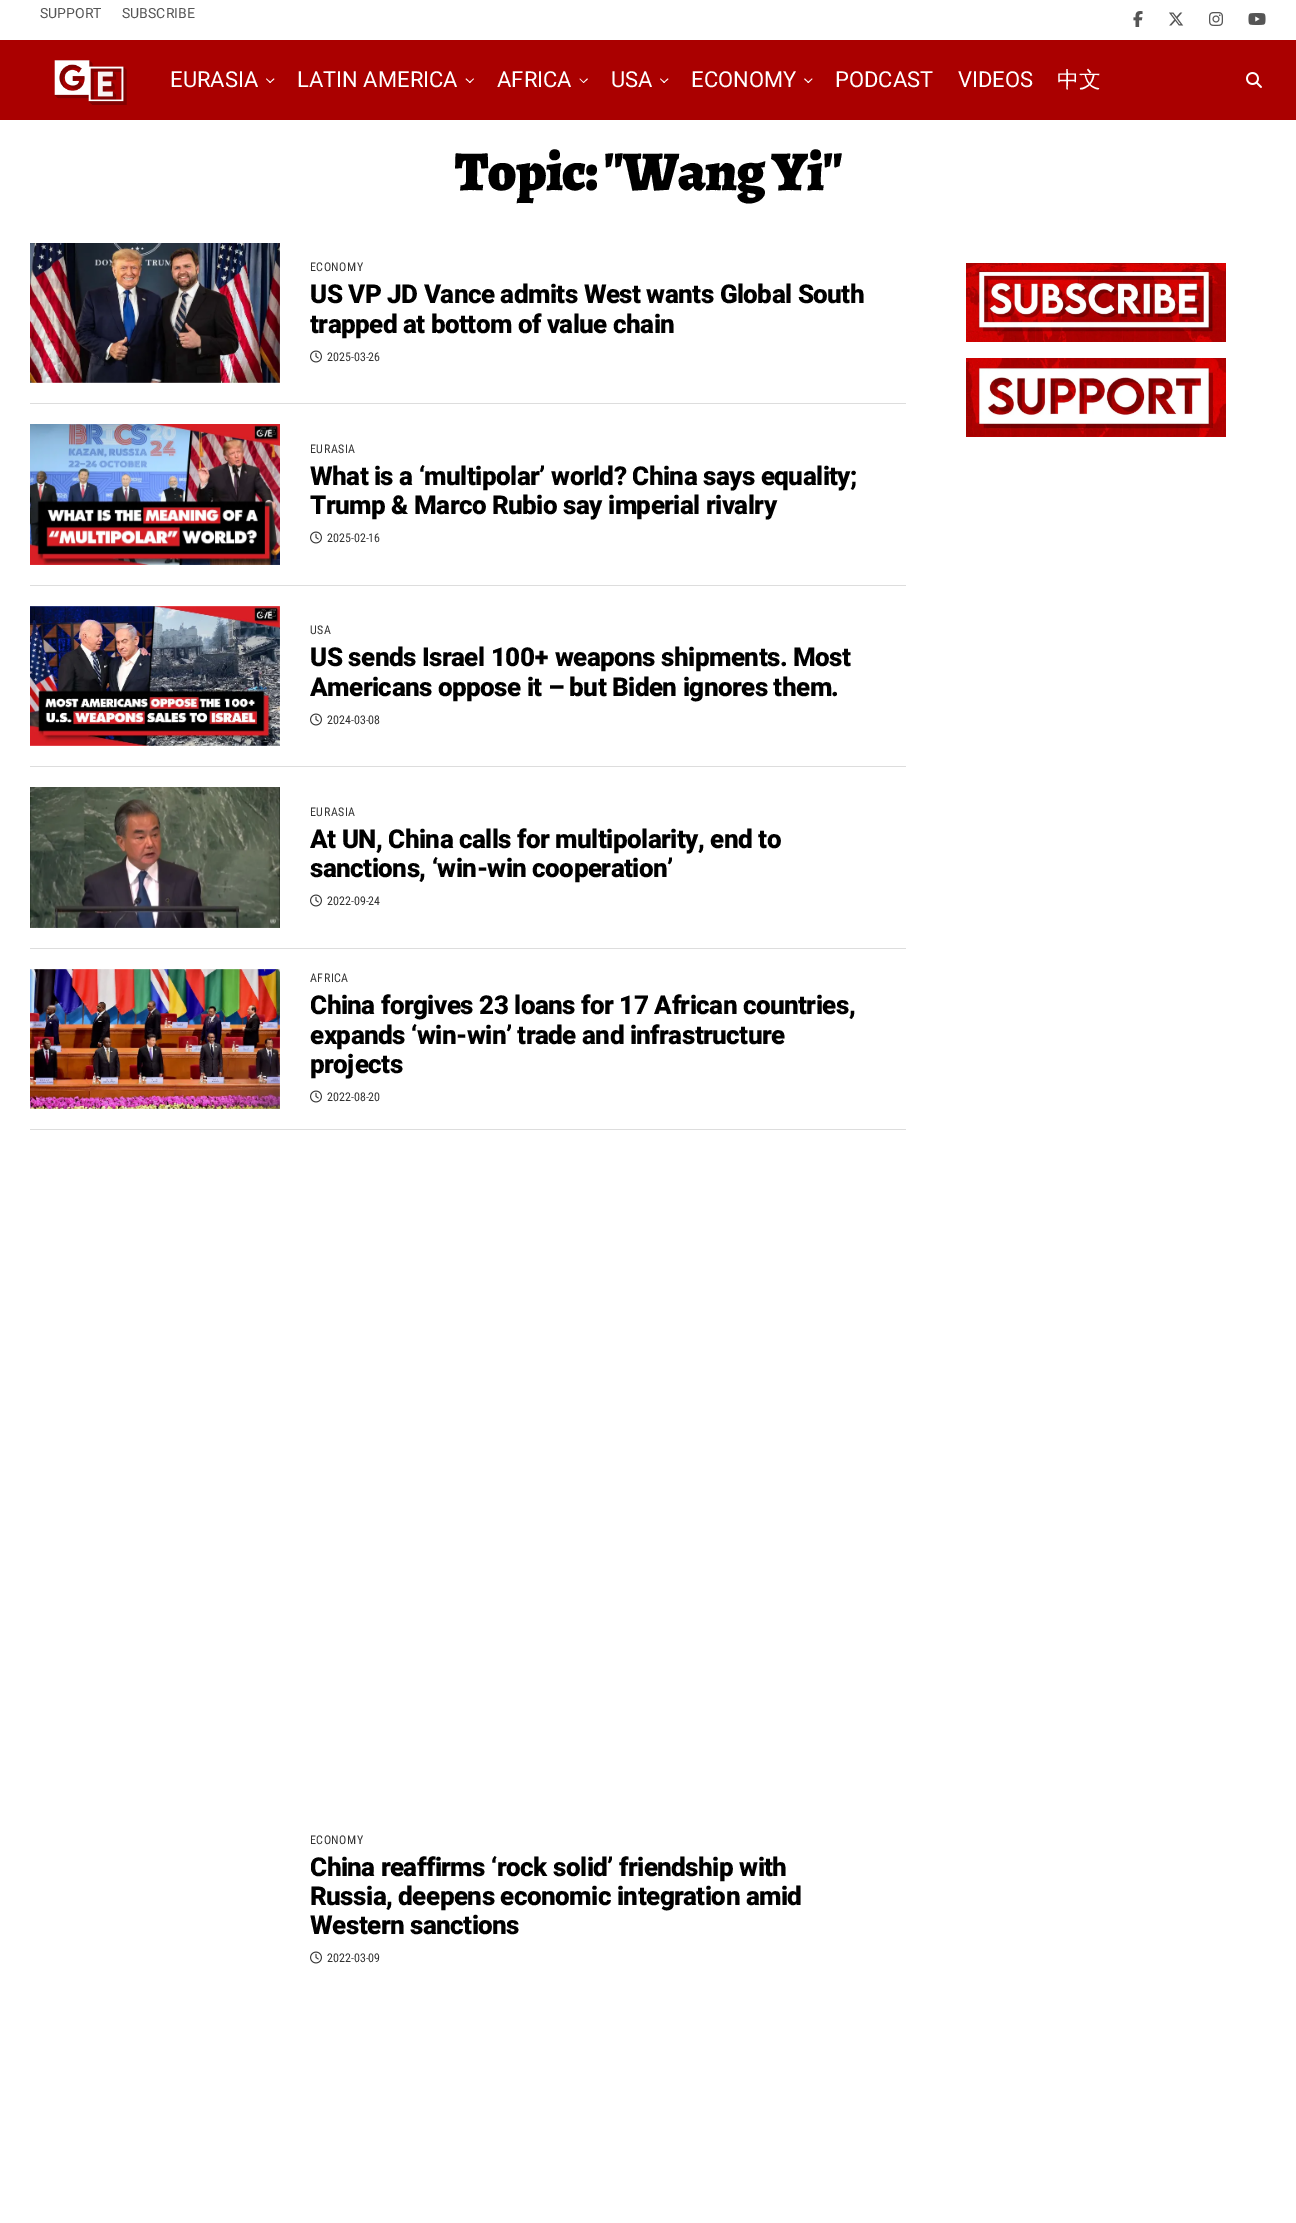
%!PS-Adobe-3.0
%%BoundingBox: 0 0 1296 2223
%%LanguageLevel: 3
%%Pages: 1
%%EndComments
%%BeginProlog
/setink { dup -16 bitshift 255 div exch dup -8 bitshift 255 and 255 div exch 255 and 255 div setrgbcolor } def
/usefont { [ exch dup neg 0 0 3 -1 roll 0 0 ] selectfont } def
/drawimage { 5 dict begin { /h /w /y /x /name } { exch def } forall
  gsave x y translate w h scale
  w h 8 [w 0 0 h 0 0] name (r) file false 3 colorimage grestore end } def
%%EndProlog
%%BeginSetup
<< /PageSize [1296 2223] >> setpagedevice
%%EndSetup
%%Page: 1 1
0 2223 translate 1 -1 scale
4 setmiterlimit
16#FFFFFF setink
0 0 1296 2223 rectfill
/Roboto-Regular 14 usefont
16#555555 setink
40 18 moveto (SUPPORT) show
122 18 moveto (SUBSCRIBE) show
(img1.raw) 1133 11 10 16 drawimage
(img2.raw) 1169 12 15 14 drawimage
(img3.raw) 1209 12 14 14 drawimage
(img4.raw) 1248 13 18 12 drawimage
16#AA0000 setink
0 40 1296 80 rectfill
(img5.raw) 54 60 73 45 drawimage
/Roboto-Regular 22 usefont
16#FFFFFF setink
170 87 moveto (EURASIA) show
273.5 78.5 moveto 274.5 79 lineto 270 83 lineto 269.5 82.5 lineto closepath fill
266.5 78.5 moveto 271 82.5 lineto 270 83 lineto 266 79 lineto closepath fill
297 87 moveto (LATIN AMERICA) show
473.5 78.5 moveto 474 79 lineto 470 83 lineto 469 82.5 lineto closepath fill
466.5 78.5 moveto 470.5 82.5 lineto 470 83 lineto 465.5 79 lineto closepath fill
497 87 moveto (AFRICA) show
587 78.5 moveto 588 79 lineto 583.5 83 lineto 583 82.5 lineto closepath fill
580 78.5 moveto 584 82.5 lineto 583.5 83 lineto 579.5 79 lineto closepath fill
611 87 moveto (USA) show
667.5 78.5 moveto 668.5 79 lineto 664 83 lineto 663.5 82.5 lineto closepath fill
660.5 78.5 moveto 665 82.5 lineto 664 83 lineto 660 79 lineto closepath fill
691 87 moveto (ECONOMY) show
812 78.5 moveto 812.5 79 lineto 808.5 83 lineto 807.5 82.5 lineto closepath fill
805 78.5 moveto 809 82.5 lineto 808.5 83 lineto 804 79 lineto closepath fill
835 87 moveto (PODCAST) show
958 87 moveto (VIDEOS) show
/WenQuanYiZenHei-Medium 22 usefont
1057 87 moveto (中文) show
(img6.raw) 1246 72 16 16 drawimage
/Alegreya-Black 56 usefont
16#000000 setink
455 190 moveto -1.1 0 (Topic: "Wang Yi") ashow
(img7.raw) 30 243 250 140 drawimage
/RobotoCondensed-Regular 12 usefont
16#333333 setink
310 271 moveto 0.5 0 (ECONOMY) ashow
/Heebo-ExtraBold 26 usefont
16#000000 setink
310 303 moveto -0.52 0 (US VP JD Vance admits West wants Global South) ashow
310 333 moveto -0.52 0 (trapped at bottom of value chain) ashow
(img8.raw) 310 350 12 13 drawimage
/RobotoCondensed-Regular 12 usefont
16#333333 setink
327 361 moveto (2025-03-26) show
16#DDDDDD setink
30 403 876 1 rectfill
(img9.raw) 30 424 250 141 drawimage
16#333333 setink
310 453 moveto 0.5 0 (EURASIA) ashow
/Heebo-ExtraBold 26 usefont
16#000000 setink
310 485 moveto -0.52 0 (What is a ‘multipolar’ world? China says equality;) ashow
310 514 moveto -0.52 0 (Trump & Marco Rubio say imperial rivalry) ashow
(img8.raw) 310 531 12 13 drawimage
/RobotoCondensed-Regular 12 usefont
16#333333 setink
327 542 moveto (2025-02-16) show
16#DDDDDD setink
30 585 876 1 rectfill
(img10.raw) 30 606 250 140 drawimage
16#333333 setink
310 634 moveto 0.5 0 (USA) ashow
/Heebo-ExtraBold 26 usefont
16#000000 setink
310 666 moveto -0.52 0 (US sends Israel 100+ weapons shipments. Most) ashow
310 696 moveto -0.52 0 (Americans oppose it – but Biden ignores them.) ashow
(img8.raw) 310 713 12 13 drawimage
/RobotoCondensed-Regular 12 usefont
16#333333 setink
327 724 moveto (2024-03-08) show
16#DDDDDD setink
30 766 876 1 rectfill
(img11.raw) 30 787 250 141 drawimage
16#333333 setink
310 816 moveto 0.5 0 (EURASIA) ashow
/Heebo-ExtraBold 26 usefont
16#000000 setink
310 848 moveto -0.52 0 (At UN, China calls for multipolarity, end to) ashow
310 877 moveto -0.52 0 (sanctions, ‘win-win cooperation’) ashow
(img8.raw) 310 894 12 13 drawimage
/RobotoCondensed-Regular 12 usefont
16#333333 setink
327 905 moveto (2022-09-24) show
16#DDDDDD setink
30 948 876 1 rectfill
(img12.raw) 30 969 250 140 drawimage
16#333333 setink
310 982 moveto 0.5 0 (AFRICA) ashow
/Heebo-ExtraBold 26 usefont
16#000000 setink
310 1014 moveto -0.52 0 (China forgives 23 loans for 17 African countries,) ashow
310 1044 moveto -0.52 0 (expands ‘win-win’ trade and infrastructure) ashow
310 1073 moveto -0.52 0 (projects) ashow
(img8.raw) 310 1090 12 13 drawimage
/RobotoCondensed-Regular 12 usefont
16#333333 setink
327 1101 moveto (2022-08-20) show
16#DDDDDD setink
30 1129 876 1 rectfill
16#333333 setink
310 1844 moveto 0.5 0 (ECONOMY) ashow
/Heebo-ExtraBold 26 usefont
16#000000 setink
310 1876 moveto -0.52 0 (China reaffirms ‘rock solid’ friendship with) ashow
310 1905 moveto -0.52 0 (Russia, deepens economic integration amid) ashow
310 1934 moveto -0.52 0 (Western sanctions) ashow
(img8.raw) 310 1951 12 13 drawimage
/RobotoCondensed-Regular 12 usefont
16#333333 setink
327 1962 moveto (2022-03-09) show
(img13.raw) 966 263 260 79 drawimage
(img14.raw) 966 358 260 79 drawimage
showpage
%%EOF
